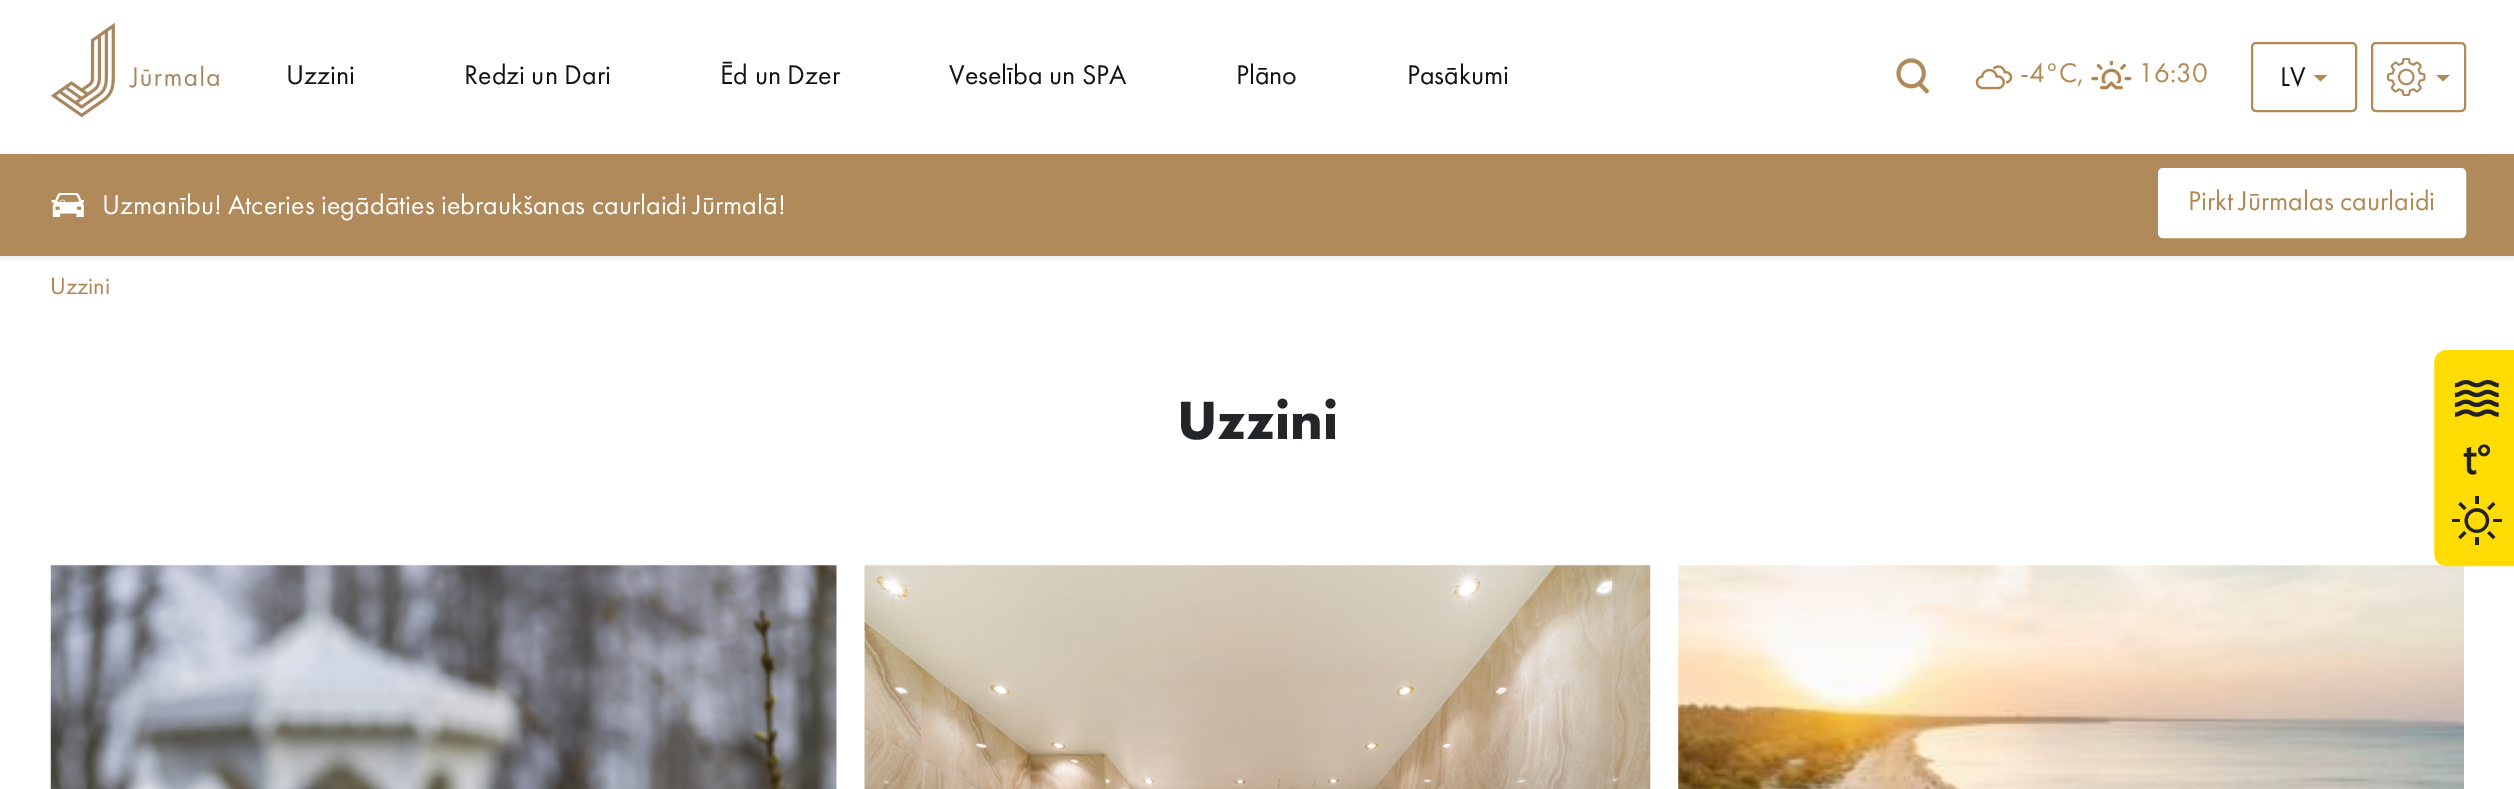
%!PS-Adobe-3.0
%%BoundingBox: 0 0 2514 789
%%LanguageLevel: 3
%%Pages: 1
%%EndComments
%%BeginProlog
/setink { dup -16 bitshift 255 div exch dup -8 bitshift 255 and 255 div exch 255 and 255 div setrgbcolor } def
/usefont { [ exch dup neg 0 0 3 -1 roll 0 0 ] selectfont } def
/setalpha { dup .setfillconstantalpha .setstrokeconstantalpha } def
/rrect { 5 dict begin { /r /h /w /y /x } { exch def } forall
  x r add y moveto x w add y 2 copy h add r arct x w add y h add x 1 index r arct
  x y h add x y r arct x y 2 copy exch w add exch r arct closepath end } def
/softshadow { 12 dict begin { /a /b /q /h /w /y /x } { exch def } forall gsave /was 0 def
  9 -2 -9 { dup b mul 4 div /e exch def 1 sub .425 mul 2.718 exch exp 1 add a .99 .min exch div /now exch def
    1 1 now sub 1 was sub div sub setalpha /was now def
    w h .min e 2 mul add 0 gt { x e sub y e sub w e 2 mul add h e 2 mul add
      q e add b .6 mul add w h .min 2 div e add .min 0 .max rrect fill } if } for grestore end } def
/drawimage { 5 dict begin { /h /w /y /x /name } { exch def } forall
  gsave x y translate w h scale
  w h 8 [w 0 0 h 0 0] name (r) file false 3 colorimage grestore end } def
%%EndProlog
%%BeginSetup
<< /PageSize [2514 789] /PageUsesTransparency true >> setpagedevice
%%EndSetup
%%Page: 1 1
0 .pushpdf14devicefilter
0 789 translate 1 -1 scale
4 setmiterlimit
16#FFFFFF setink
0 0 2514 789 rectfill
16#000000 setink
0 156 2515 101 0 3.5 0.1 softshadow
16#FFFFFF setink
33 152 2450 2 rectfill
(img1.raw) 51 23 168 95 drawimage
/FuturaPT-Regular 28 usefont
16#121212 setink
[
    [(Uzzini) 286 84]
    [(Redzi un Dari) 464 84]
    [(Ēd un Dzer) 720 84]
    [(Veselība un SPA) 949 84]
    [(Plāno) 1236 84]
    [(Pasākumi) 1407 84]
] { aload pop moveto show } forall
(img2.raw) 1896 58 33 36 drawimage
(img3.raw) 1975 65 38 25 drawimage
16#B28751 setink
2020 82 moveto (-4°C,) show
(img4.raw) 2091 61 41 29 drawimage
2138 82 moveto (16:30) show
16#B08A5B setink
2 setlinewidth
2252 43 104 68 4 rrect stroke
16#121212 setink
2280 86 moveto (LV) show
gsave
2314 75 14 7 rectclip
16#B28751 setink
2327.5 74.5 moveto 2320.5 81.5 lineto 2313.5 74.5 lineto closepath fill
grestore
16#B08A5B setink
2372 43 93 68 4 rrect stroke
(img5.raw) 2387 58 39 38 drawimage
gsave
2436 75 14 7 rectclip
2450 74.5 moveto 2443 81.5 lineto 2436 74.5 lineto closepath fill
grestore
0 154 2514 102 rectfill
(img6.raw) 51 193 33 24 drawimage
16#FFFFFF setink
102 214 moveto (Uzmanību! Atceries iegādāties iebraukšanas caurlaidi Jūrmalā!) show
2159 169 306 68 4 rrect gsave fill grestore
stroke
16#B28751 setink
2188 210 moveto (Pirkt Jūrmalas caurlaidi) show
/FuturaPT-Regular 24.5 usefont
50 294 moveto (Uzzini) show
/FuturaPT-Bold 56 usefont
16#242528 setink
1177 439 moveto (Uzzini) show
(img7.raw) 50 565 787 224 drawimage
(img8.raw) 864 565 787 224 drawimage
(img9.raw) 1678 565 786 224 drawimage
(img10.raw) 2434 350 80 217 drawimage
.poppdf14devicefilter showpage
%%EOF
